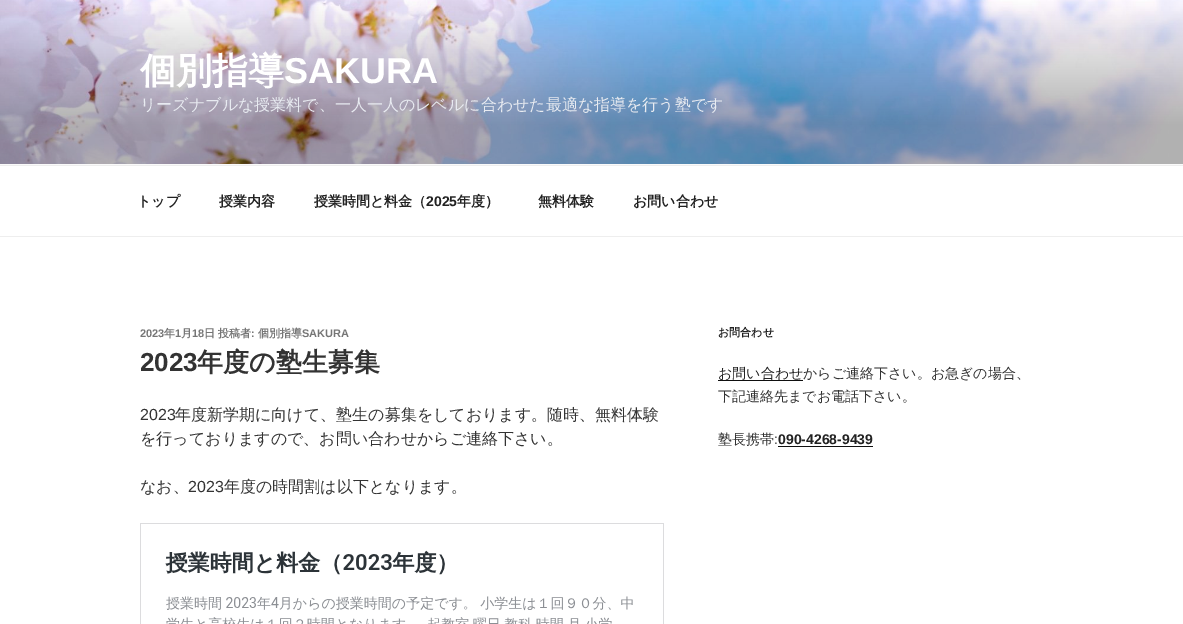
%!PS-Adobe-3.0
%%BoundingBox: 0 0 1183 624
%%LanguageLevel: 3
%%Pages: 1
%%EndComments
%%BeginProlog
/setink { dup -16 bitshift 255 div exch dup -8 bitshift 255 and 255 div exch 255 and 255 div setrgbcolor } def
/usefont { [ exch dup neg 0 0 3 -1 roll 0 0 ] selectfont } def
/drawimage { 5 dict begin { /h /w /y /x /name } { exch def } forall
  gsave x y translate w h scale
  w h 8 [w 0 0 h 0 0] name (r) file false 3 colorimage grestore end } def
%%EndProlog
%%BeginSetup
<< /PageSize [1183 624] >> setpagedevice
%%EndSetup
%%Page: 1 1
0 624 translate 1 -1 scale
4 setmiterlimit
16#FFFFFF setink
0 0 1183 624 rectfill
16#FAFAFA setink
0 164 1183 1 rectfill
(img1.raw) 0 0 1183 164 drawimage
/WenQuanYiZenHei-Bold 36 usefont
16#FFFFFF setink
140 83 moveto (個別指導) show
/LiberationSans-Bold 36 usefont
284 83 moveto (SAKURA) show
/WenQuanYiZenHei-Medium 16 usefont
16#E8EBF1 setink
140 110 moveto (リーズナブルな授業料で、一人一人のレベルに合わせた最適な指導を行う塾です) show
16#EEEEEE setink
0 165 1183 1 rectfill
0 236 1183 1 rectfill
/WenQuanYiZenHei-Bold 14 usefont
16#222222 setink
[
    [(トップ) 137 206]
    [(授業内容) 219 206]
    [(授業時間と料金（) 314 206]
] { aload pop moveto show } forall
/LiberationSans-Bold 14 usefont
426 206 moveto (2025) show
/WenQuanYiZenHei-Bold 14 usefont
[
    [(年度）) 457 206]
    [(無料体験) 538 206]
    [(お問い合わせ) 633 206]
] { aload pop moveto show } forall
/LiberationSans-Bold 11 usefont
16#767676 setink
140 337 moveto (2023) show
/WenQuanYiZenHei-Bold 11 usefont
164 337 moveto (年) show
/LiberationSans-Bold 11 usefont
175 337 moveto (1) show
/WenQuanYiZenHei-Bold 11 usefont
181 337 moveto (月) show
/LiberationSans-Bold 11 usefont
192 337 moveto (18) show
/WenQuanYiZenHei-Bold 11 usefont
204 337 moveto (日 投稿者) show
/LiberationSans-Bold 11 usefont
251 337 moveto (:) show
/WenQuanYiZenHei-Bold 11 usefont
258 337 moveto (個別指導) show
/LiberationSans-Bold 11 usefont
302 337 moveto (SAKURA) show
/LiberationSans-Bold 26 usefont
16#333333 setink
140 371 moveto (2023) show
/WenQuanYiZenHei-Bold 26 usefont
197 371 moveto (年度の塾生募集) show
/LiberationSans-Regular 16 usefont
140 420 moveto (2023) show
/WenQuanYiZenHei-Medium 16 usefont
[
    [(年度新学期に向けて、塾生の募集をしております。随時、無料体験) 175 420]
    [(を行っておりますので、お問い合わせからご連絡下さい。) 140 444]
    [(なお、) 140 492]
] { aload pop moveto show } forall
/LiberationSans-Regular 16 usefont
188 492 moveto (2023) show
/WenQuanYiZenHei-Medium 16 usefont
224 492 moveto (年度の時間割は以下となります。) show
(img2.raw) 140 523 524 101 drawimage
/WenQuanYiZenHei-Bold 11 usefont
16#222222 setink
718 336 moveto (お問合わせ) show
16#0F0F0F setink
718 380 85 1 rectfill
/WenQuanYiZenHei-Medium 14 usefont
16#222222 setink
718 378 moveto (お問い合わせ) show
16#333333 setink
[
    [(からご連絡下さい。お急ぎの場合、) 803 378]
    [(下記連絡先までお電話下さい。) 718 401]
    [(塾長携帯) 718 444]
] { aload pop moveto show } forall
/LiberationSans-Regular 14 usefont
774 444 moveto (:) show
/LiberationSans-Bold 14 usefont
16#222222 setink
778 444 moveto (090-4268-9439) show
16#0F0F0F setink
778 446 95 1 rectfill
showpage
%%EOF
